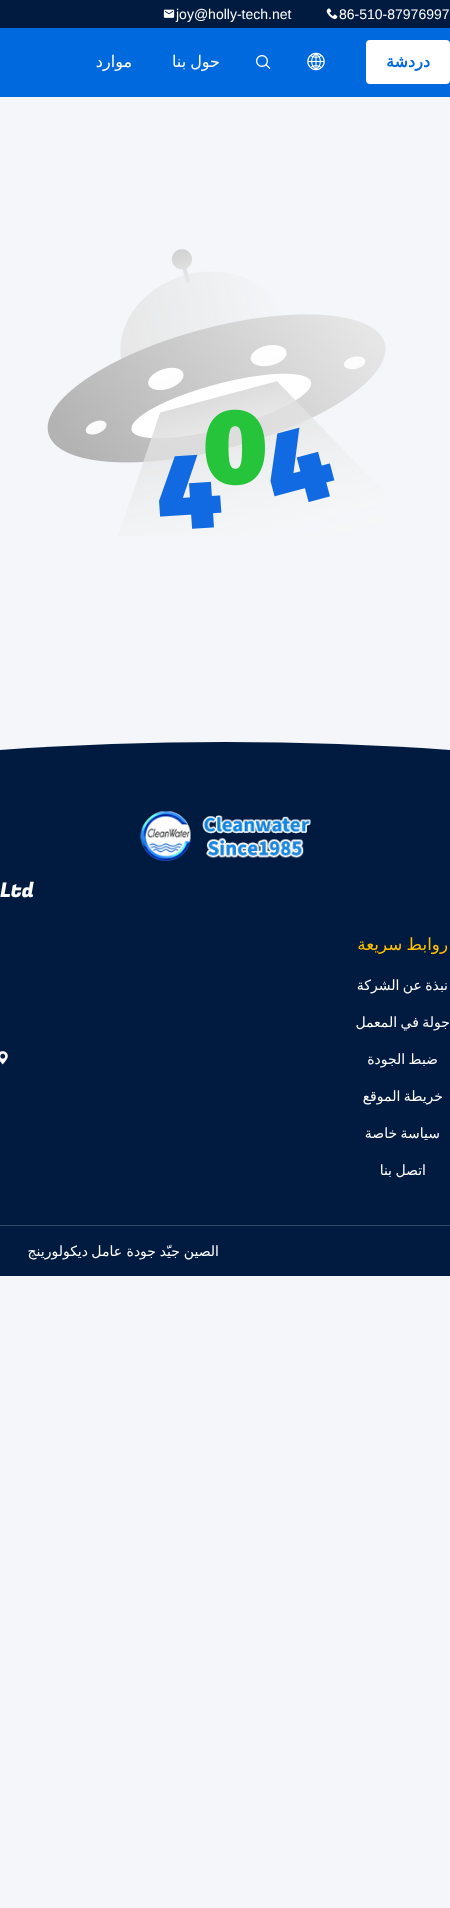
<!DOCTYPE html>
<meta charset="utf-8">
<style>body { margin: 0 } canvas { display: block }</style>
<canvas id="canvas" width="450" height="1908"></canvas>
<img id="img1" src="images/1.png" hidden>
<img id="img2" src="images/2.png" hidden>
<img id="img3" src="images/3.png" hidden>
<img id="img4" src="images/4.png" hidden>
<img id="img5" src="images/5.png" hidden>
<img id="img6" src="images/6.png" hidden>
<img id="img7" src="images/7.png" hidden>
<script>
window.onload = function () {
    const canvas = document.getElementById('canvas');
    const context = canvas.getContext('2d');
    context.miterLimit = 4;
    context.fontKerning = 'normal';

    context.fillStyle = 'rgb(244, 246, 249)';
    context.fillRect(0, 0, 450, 1908);
    context.fillStyle = 'rgb(0, 27, 63)';
    context.fillRect(0, 0, 450, 28);
    context.drawImage(document.getElementById('img1'), 326, 8, 12, 12);
    context.drawImage(document.getElementById('img2'), 163, 9, 12, 9);
    context.fillStyle = 'rgb(0, 105, 222)';
    context.fillRect(0, 28, 450, 69);
    context.fillStyle = 'rgb(255, 255, 255)';
    context.beginPath();
    context.roundRect(366, 40, 84, 44, 4);
    context.fill();
    context.drawImage(document.getElementById('img3'), 307, 52, 18, 19);
    context.drawImage(document.getElementById('img4'), 256, 55, 15, 14);
    context.drawImage(document.getElementById('img5'), 47, 249, 339, 287);
    context.save();
    context.beginPath();
    context.rect(0, 742, 450, 534);
    context.clip();
    context.fillStyle = 'rgb(0, 27, 63)';
    context.beginPath();
    context.moveTo(225, 742);
    context.bezierCurveTo(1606, 742, 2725, 1637, 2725, 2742);
    context.lineTo(-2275, 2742);
    context.bezierCurveTo(-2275, 1637, -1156, 742, 225, 742);
    context.closePath();
    context.fill();
    context.restore();
    context.drawImage(document.getElementById('img6'), 140, 811, 171, 50);
    context.drawImage(document.getElementById('img7'), 0, 1051, 8, 14);
    context.fillStyle = 'rgb(51, 73, 101)';
    context.fillRect(0, 1225, 450, 1);
    context.font = '14px Liberation Sans';
    context.fillStyle = 'rgb(255, 255, 255)';
    context.fillText('86-510-87976997', 339, 19);
    context.fillText('joy@holly-tech.net', 176, 19);
    context.direction = 'rtl';
    context.font = 'bold 16px DejaVu Sans';
    context.fillStyle = 'rgb(0, 105, 222)';
    context.fillText('دردشة', 430, 67);
    context.wordSpacing = '-1px';
    context.font = '16px DejaVu Sans';
    context.fillStyle = 'rgb(255, 255, 255)';
    context.fillText('حول بنا', 220, 67);
    context.wordSpacing = '0px';
    context.fillText('موارد', 132, 67);
    context.direction = 'ltr';
    context.font = '20px Fugaz One';
    context.fillText('Ltd', 0, 897);
    context.wordSpacing = '-1px';
    context.direction = 'rtl';
    context.font = '16.75px DejaVu Sans';
    context.fillStyle = 'rgb(255, 192, 0)';
    context.fillText('روابط سريعة', 448, 950);
    context.font = '14px DejaVu Sans';
    context.fillStyle = 'rgb(255, 255, 255)';
    context.fillText('نبذة عن الشركة', 448, 990);
    context.fillText('جولة في المعمل', 450, 1027);
    context.fillText('ضبط الجودة', 438, 1064);
    context.fillText('خريطة الموقع', 443, 1101);
    context.fillText('سياسة خاصة', 440, 1138);
    context.fillText('اتصل بنا', 426, 1175);
    context.wordSpacing = '0px';
    context.fillText('الصين', 219, 1256);
    context.fillText('جيّد', 180, 1256);
    context.fillText('جودة', 156, 1256);
    context.fillText('عامل', 122, 1256);
    context.fillText('ديكولورينج', 88, 1256);
};
</script>
